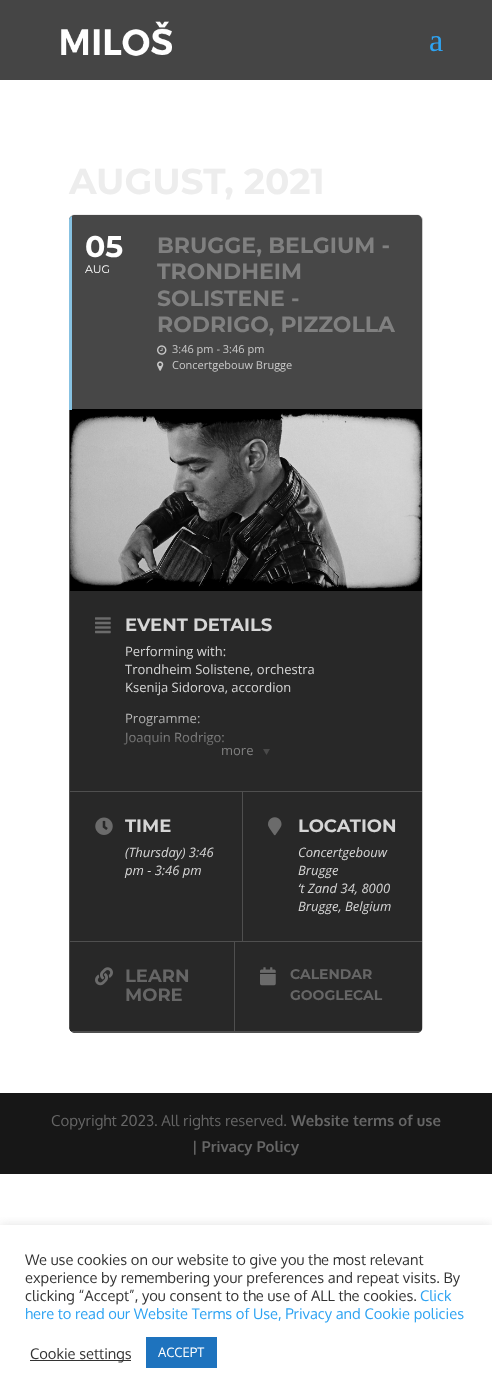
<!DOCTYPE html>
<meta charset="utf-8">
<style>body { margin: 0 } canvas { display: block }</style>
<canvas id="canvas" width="492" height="1398"></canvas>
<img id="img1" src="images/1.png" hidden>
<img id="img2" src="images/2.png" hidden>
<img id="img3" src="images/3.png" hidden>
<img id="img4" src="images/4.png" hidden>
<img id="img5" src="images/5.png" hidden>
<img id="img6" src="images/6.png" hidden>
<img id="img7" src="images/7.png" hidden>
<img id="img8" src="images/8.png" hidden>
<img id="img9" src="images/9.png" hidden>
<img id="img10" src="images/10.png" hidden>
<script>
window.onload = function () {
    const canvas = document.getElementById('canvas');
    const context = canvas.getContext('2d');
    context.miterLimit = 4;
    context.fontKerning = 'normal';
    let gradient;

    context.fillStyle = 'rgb(255, 255, 255)';
    context.fillRect(0, 0, 492, 1398);
    context.fillStyle = 'rgb(69, 69, 69)';
    context.fillRect(0, 0, 492, 80);
    context.drawImage(document.getElementById('img1'), 61, 21, 111, 35);
    context.fillStyle = 'rgb(239, 238, 238)';
    context.beginPath();
    context.moveTo(75, 214);
    context.lineTo(417, 214);
    context.bezierCurveTo(418, 214, 420, 215, 421, 216);
    context.bezierCurveTo(420, 216, 418, 215, 417, 215);
    context.lineTo(75, 215);
    context.bezierCurveTo(72, 215, 69, 217, 69, 220);
    context.bezierCurveTo(69, 217, 72, 214, 75, 214);
    context.closePath();
    context.fill();
    context.fillStyle = 'rgb(205, 205, 205)';
    context.beginPath();
    context.moveTo(421, 216);
    context.bezierCurveTo(422, 217, 422, 218, 422, 220);
    context.lineTo(422, 1027);
    context.bezierCurveTo(422, 1030, 420, 1033, 417, 1033);
    context.bezierCurveTo(420, 1033, 423, 1030, 423, 1027);
    context.lineTo(423, 220);
    context.bezierCurveTo(423, 218, 422, 217, 421, 216);
    context.closePath();
    context.fill();
    context.fillStyle = 'rgb(71, 71, 71)';
    context.beginPath();
    context.moveTo(75, 215);
    context.bezierCurveTo(72, 215, 69, 217, 69, 220);
    context.lineTo(69, 410);
    context.lineTo(422, 410);
    context.lineTo(422, 220);
    context.bezierCurveTo(422, 217, 420, 215, 417, 215);
    context.closePath();
    context.fill();
    context.fillStyle = 'rgb(135, 194, 226)';
    context.beginPath();
    context.moveTo(72, 216);
    context.bezierCurveTo(70, 217, 69, 218, 69, 220);
    context.lineTo(69, 410);
    context.lineTo(72, 410);
    context.closePath();
    context.fill();
    context.drawImage(document.getElementById('img2'), 157, 345, 10, 10);
    context.drawImage(document.getElementById('img3'), 157, 361, 7, 10);
    context.fillStyle = 'rgb(0, 0, 0)';
    context.fillRect(72, 409, 350, 1);
    context.fillStyle = 'rgb(40, 40, 40)';
    context.beginPath();
    context.moveTo(69, 410);
    context.lineTo(69, 1027);
    context.bezierCurveTo(69, 1030, 72, 1033, 75, 1033);
    context.lineTo(417, 1033);
    context.bezierCurveTo(420, 1033, 422, 1030, 422, 1027);
    context.lineTo(422, 410);
    context.closePath();
    context.fill();
    context.fillStyle = 'rgb(79, 79, 79)';
    context.beginPath();
    context.moveTo(75, 1033);
    context.lineTo(417, 1033);
    context.lineTo(420, 1032);
    context.lineTo(72, 1032);
    context.closePath();
    context.fill();
    context.beginPath();
    context.moveTo(69, 410);
    context.lineTo(69, 1027);
    context.lineTo(70, 1030);
    context.lineTo(70, 410);
    context.closePath();
    context.fill();
    context.drawImage(document.getElementById('img4'), 70, 410, 352, 181);
    context.fillRect(70, 791, 352, 1);
    context.drawImage(document.getElementById('img5'), 95, 617, 16, 17);
    context.drawImage(document.getElementById('img6'), 263, 749, 7, 6);
    context.fillRect(70, 941, 352, 1);
    context.fillRect(242, 792, 1, 149);
    context.drawImage(document.getElementById('img7'), 95, 817, 18, 18);
    context.drawImage(document.getElementById('img8'), 268, 817, 14, 19);
    context.beginPath();
    context.moveTo(72, 1032);
    context.lineTo(71, 1031);
    context.lineTo(421, 1031);
    context.lineTo(420, 1032);
    context.closePath();
    context.fill();
    context.fillStyle = 'rgb(40, 40, 40)';
    context.fillRect(70, 1030, 1, 1);
    context.fillStyle = 'rgb(79, 79, 79)';
    context.fillRect(234, 942, 1, 89);
    context.drawImage(document.getElementById('img9'), 95, 967, 18, 19);
    context.fillStyle = 'rgb(40, 40, 40)';
    context.beginPath();
    context.moveTo(235, 942);
    context.lineTo(235, 1031);
    context.lineTo(421, 1031);
    context.bezierCurveTo(422, 1030, 422, 1029, 422, 1027);
    context.lineTo(422, 942);
    context.closePath();
    context.fill();
    context.drawImage(document.getElementById('img10'), 260, 967, 16, 19);
    context.fillStyle = 'rgb(23, 23, 23)';
    context.fillRect(0, 1093, 492, 81);
    context.save();
    context.beginPath();
    context.rect(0, 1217, 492, 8);
    context.clip();
    context.fillStyle = 'rgba(172, 171, 171, 0.3)';
    context.filter = 'blur(5px)';
    context.beginPath();
    context.rect(0, 1224, 492, 173);
    context.fill();
    context.filter = 'none';
    context.restore();
    context.fillStyle = 'rgb(51, 51, 51)';
    context.fillRect(30, 1360, 101, 1);
    context.fillStyle = 'rgb(30, 115, 190)';
    context.fillRect(146, 1337, 71, 31);
    context.font = '32px Liberation Serif';
    context.fillStyle = 'rgb(46, 163, 242)';
    context.fillText('a', 429, 51);
    context.font = '100 36px Montserrat';
    context.fillStyle = 'rgb(237, 237, 237)';
    context.fillText('AUGUST, 2021', 69, 194);
    context.font = '100 30px Montserrat';
    context.fillStyle = 'rgb(255, 255, 255)';
    context.fillText('05', 85, 257);
    context.font = '100 11px "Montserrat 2"';
    context.fillText('AUG', 85, 273);
    context.font = '100 22px Montserrat';
    context.fillStyle = 'rgb(128, 128, 128)';
    context.fillText('BRUGGE, BELGIUM -', 157, 253);
    context.fillText('TRONDHEIM', 157, 279);
    context.fillText('SOLISTENE -', 157, 306);
    context.fillText('RODRIGO, PIZZOLLA', 157, 332);
    context.font = '11px Open Sans';
    context.fillStyle = 'rgb(200, 200, 200)';
    context.fillText('3:46 pm - 3:46 pm', 172, 353);
    context.fillText('Concertgebouw Brugge', 172, 369);
    context.font = '100 18px Montserrat';
    context.fillStyle = 'rgb(214, 214, 214)';
    context.fillText('EVENT DETAILS', 125, 631);
    context.font = '13px Open Sans';
    context.fillText('Performing with:', 125, 656);
    context.fillText('Trondheim Solistene, orchestra', 125, 674);
    context.fillText('Ksenija Sidorova, accordion', 125, 692);
    context.fillText('Programme:', 125, 723);
    context.fillText('Joaquin Rodrigo:', 125, 742);
    gradient = context.createLinearGradient(246, 706, 246, 766);
    gradient.addColorStop(0, 'rgba(40, 40, 40, 0)');
    gradient.addColorStop(0.01, 'rgba(40, 40, 40, 0.01)');
    gradient.addColorStop(1, 'rgb(40, 40, 40)');
    context.fillStyle = gradient;
    context.fillRect(124, 713, 100, 33);
    context.fillStyle = 'rgb(128, 128, 128)';
    context.fillText('more', 221, 755);
    context.font = '100 18px Montserrat';
    context.fillStyle = 'rgb(214, 214, 214)';
    context.fillText('TIME', 125, 832);
    context.font = 'italic 13px Open Sans';
    context.fillText('(Thursday) 3:46', 125, 857);
    context.fillText('pm - 3:46 pm', 125, 875);
    context.font = '100 18px Montserrat';
    context.fillText('LOCATION', 298, 832);
    context.font = 'italic 13px Open Sans';
    context.fillText('Concertgebouw', 298, 857);
    context.fillText('Brugge', 298, 875);
    context.fillText('‘t Zand 34, 8000', 298, 893);
    context.fillText('Brugge, Belgium', 298, 911);
    context.font = '100 18px Montserrat';
    context.fillStyle = 'rgb(102, 102, 102)';
    context.fillText('LEARN', 125, 982);
    context.fillText('MORE', 125, 1001);
    context.font = '100 14px Montserrat';
    context.fillText('CALENDAR', 290, 979);
    context.fillText('GOOGLECAL', 290, 1000);
    context.font = '15px Oxygen';
    context.fillText('Copyright 2023. All rights reserved.', 51, 1126);
    context.font = 'bold 15px Oxygen';
    context.fillText('Website terms of use', 291, 1126);
    context.fillText('| Privacy Policy', 192, 1152);
    context.font = '14.7px Oxygen';
    context.fillStyle = 'rgb(51, 51, 51)';
    context.fillText('We use cookies on our website to give you the most relevant', 25, 1265);
    context.fillText('experience by remembering your preferences and repeat visits. By', 25, 1283);
    context.fillText('clicking “Accept”, you consent to the use of ALL the cookies.', 25, 1301);
    context.fillStyle = 'rgb(46, 163, 242)';
    context.fillText('Click', 420, 1301);
    context.fillText('here to read our Website Terms of Use, Privacy and Cookie policies', 25, 1319);
    context.fillStyle = 'rgb(51, 51, 51)';
    context.fillText('Cookie settings', 30, 1359);
    context.font = '13px Oxygen';
    context.fillStyle = 'rgb(255, 255, 255)';
    context.fillText('ACCEPT', 158, 1357);
};
</script>
